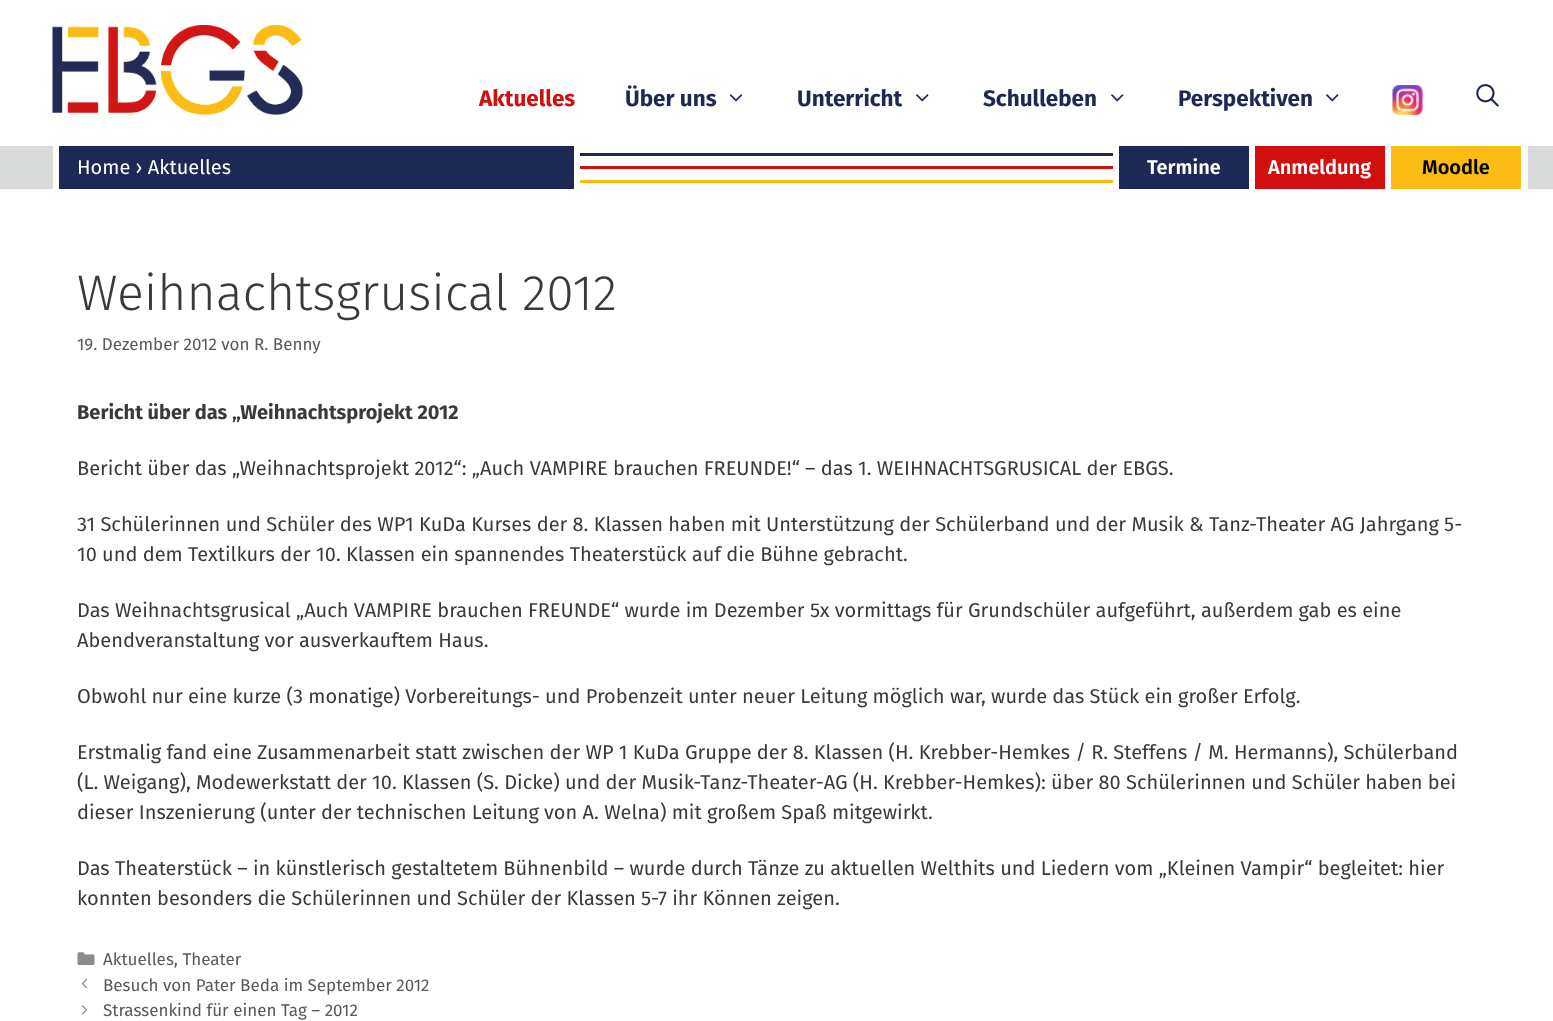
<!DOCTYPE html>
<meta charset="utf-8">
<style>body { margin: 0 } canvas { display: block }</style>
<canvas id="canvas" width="1553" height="1021"></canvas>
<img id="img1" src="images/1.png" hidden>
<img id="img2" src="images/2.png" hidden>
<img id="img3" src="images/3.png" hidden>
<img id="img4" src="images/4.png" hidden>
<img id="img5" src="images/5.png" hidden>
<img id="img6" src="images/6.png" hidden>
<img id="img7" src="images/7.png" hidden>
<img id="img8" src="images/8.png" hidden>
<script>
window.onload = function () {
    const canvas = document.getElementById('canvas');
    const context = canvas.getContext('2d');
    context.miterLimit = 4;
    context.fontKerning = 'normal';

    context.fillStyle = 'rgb(255, 255, 255)';
    context.fillRect(0, 0, 1553, 1021);
    context.drawImage(document.getElementById('img1'), 52, 25, 251, 90);
    context.drawImage(document.getElementById('img2'), 729, 94, 14, 8);
    context.drawImage(document.getElementById('img3'), 916, 94, 13, 8);
    context.drawImage(document.getElementById('img3'), 1111, 94, 13, 8);
    context.drawImage(document.getElementById('img3'), 1326, 94, 13, 8);
    context.drawImage(document.getElementById('img4'), 1392, 85, 31, 30);
    context.drawImage(document.getElementById('img5'), 1476, 84, 23, 23);
    context.fillStyle = 'rgb(217, 218, 218)';
    context.fillRect(0, 146, 1553, 43);
    context.fillStyle = 'rgb(255, 255, 255)';
    context.fillRect(574, 146, 545, 43);
    context.fillStyle = 'rgb(30, 40, 84)';
    context.fillRect(59, 146, 515, 43);
    context.fillStyle = 'rgb(255, 255, 255)';
    context.fillRect(53, 146, 6, 43);
    context.fillStyle = 'rgb(30, 40, 84)';
    context.fillRect(580, 153, 533, 3);
    context.fillStyle = 'rgb(209, 15, 15)';
    context.fillRect(580, 166, 533, 3);
    context.fillStyle = 'rgb(251, 188, 21)';
    context.fillRect(580, 180, 533, 3);
    context.fillStyle = 'rgb(30, 40, 84)';
    context.fillRect(1119, 146, 130, 43);
    context.fillStyle = 'rgb(255, 255, 255)';
    context.fillRect(1249, 146, 6, 43);
    context.fillStyle = 'rgb(209, 15, 15)';
    context.fillRect(1255, 146, 130, 43);
    context.fillStyle = 'rgb(255, 255, 255)';
    context.fillRect(1385, 146, 6, 43);
    context.fillStyle = 'rgb(251, 188, 21)';
    context.fillRect(1391, 146, 130, 43);
    context.fillStyle = 'rgb(255, 255, 255)';
    context.fillRect(1521, 146, 7, 43);
    context.drawImage(document.getElementById('img6'), 77, 952, 18, 13);
    context.drawImage(document.getElementById('img7'), 81, 979, 7, 10);
    context.drawImage(document.getElementById('img8'), 81, 1005, 7, 10);
    context.font = 'bold 22.5px Fira Sans';
    context.fillStyle = 'rgb(209, 15, 15)';
    context.fillText('Aktuelles', 479, 106);
    context.fillStyle = 'rgb(30, 40, 84)';
    context.fillText('Über uns', 625, 106);
    context.fillText('Unterricht', 797, 106);
    context.fillText('Schulleben', 983, 106);
    context.fillText('Perspektiven', 1178, 106);
    context.font = '20px Fira Sans';
    context.fillStyle = 'rgb(255, 255, 255)';
    context.fillText('Home › Aktuelles', 77, 174);
    context.font = '600 20px Fira Sans';
    context.fillText('Termine', 1147, 174);
    context.fillText('Anmeldung', 1268, 174);
    context.fillStyle = 'rgb(0, 0, 0)';
    context.fillText('Moodle', 1422, 174);
    context.font = '300 50px Fira Sans';
    context.fillStyle = 'rgb(58, 58, 58)';
    context.fillText('Weihnachtsgrusical 2012', 77, 310);
    context.font = '17px Fira Sans';
    context.fillStyle = 'rgb(89, 89, 89)';
    context.fillText('19. Dezember 2012 von R. Benny', 77, 350);
    context.font = 'bold 20px Fira Sans';
    context.fillStyle = 'rgb(58, 58, 58)';
    context.fillText('Bericht über das „Weihnachtsprojekt 2012', 77, 419);
    context.font = '20px Fira Sans';
    context.fillText('Bericht über das „Weihnachtsprojekt 2012“: „Auch VAMPIRE brauchen FREUNDE!“ – das 1. WEIHNACHTSGRUSICAL der EBGS.', 77, 475);
    context.fillText('31 Schülerinnen und Schüler des WP1 KuDa Kurses der 8. Klassen haben mit Unterstützung der Schülerband und der Musik & Tanz-Theater AG Jahrgang 5-', 77, 531);
    context.fillText('10 und dem Textilkurs der 10. Klassen ein spannendes Theaterstück auf die Bühne gebracht.', 77, 561);
    context.fillText('Das Weihnachtsgrusical „Auch VAMPIRE brauchen FREUNDE“ wurde im Dezember 5x vormittags für Grundschüler aufgeführt, außerdem gab es eine', 77, 617);
    context.fillText('Abendveranstaltung vor ausverkauftem Haus.', 77, 647);
    context.fillText('Obwohl nur eine kurze (3 monatige) Vorbereitungs- und Probenzeit unter neuer Leitung möglich war, wurde das Stück ein großer Erfolg.', 77, 703);
    context.fillText('Erstmalig fand eine Zusammenarbeit statt zwischen der WP 1 KuDa Gruppe der 8. Klassen (H. Krebber-Hemkes / R. Steffens / M. Hermanns), Schülerband', 77, 759);
    context.fillText('(L. Weigang), Modewerkstatt der 10. Klassen (S. Dicke) und der Musik-Tanz-Theater-AG (H. Krebber-Hemkes): über 80 Schülerinnen und Schüler haben bei', 77, 789);
    context.fillText('dieser Inszenierung (unter der technischen Leitung von A. Welna) mit großem Spaß mitgewirkt.', 77, 819);
    context.fillText('Das Theaterstück – in künstlerisch gestaltetem Bühnenbild – wurde durch Tänze zu aktuellen Welthits und Liedern vom „Kleinen Vampir“ begleitet: hier', 77, 875);
    context.fillText('konnten besonders die Schülerinnen und Schüler der Klassen 5-7 ihr Können zeigen.', 77, 905);
    context.font = '17px Fira Sans';
    context.fillStyle = 'rgb(89, 89, 89)';
    context.fillText('Aktuelles, Theater', 103, 965);
    context.fillText('Besuch von Pater Beda im September 2012', 103, 991);
    context.fillText('Strassenkind für einen Tag – 2012', 103, 1016);
};
</script>
